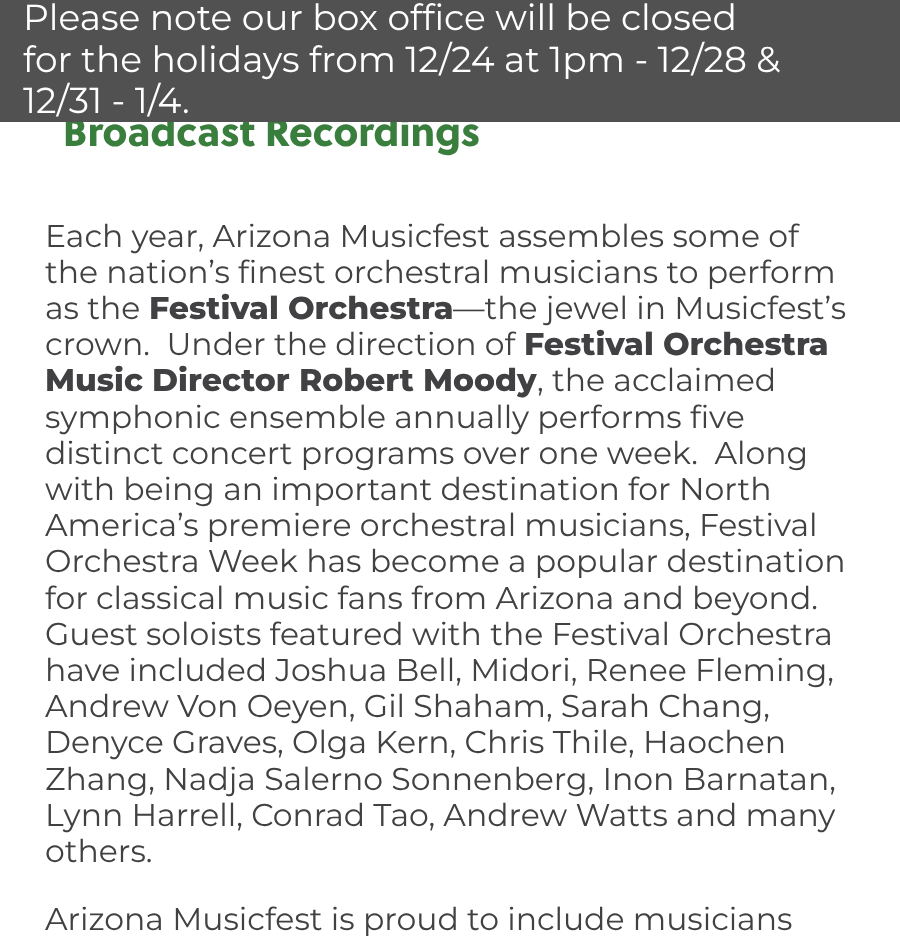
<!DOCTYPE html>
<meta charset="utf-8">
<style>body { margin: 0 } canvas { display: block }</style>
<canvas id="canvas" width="900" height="945"></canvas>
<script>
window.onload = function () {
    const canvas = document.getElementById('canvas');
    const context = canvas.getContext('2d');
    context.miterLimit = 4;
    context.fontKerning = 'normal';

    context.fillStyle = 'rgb(255, 255, 255)';
    context.fillRect(0, 0, 900, 945);
    context.font = '800 39.6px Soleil';
    context.fillStyle = 'rgb(58, 126, 61)';
    context.fillText('Broadcast Recordings', 63, 146);
    context.fillStyle = 'rgb(81, 81, 81)';
    context.fillRect(0, 0, 900, 122);
    context.font = '36px Montserrat';
    context.fillStyle = 'rgb(255, 255, 255)';
    context.fillText('12/31 - 1/4.', 23, 113);
    context.fillText('for the holidays from 12/24 at 1pm - 12/28 &', 23, 72);
    context.fillText('Please note our box office will be closed', 23, 30);
    context.font = '31.5px Montserrat';
    context.fillStyle = 'rgb(65, 64, 66)';
    context.fillText('Each year, Arizona Musicfest assembles some of', 45, 247);
    context.fillText('the nation’s finest orchestral musicians to perform', 45, 283);
    context.fillText('as the', 45, 319);
    context.font = '800 31.5px Montserrat';
    context.fillText('Festival Orchestra', 149, 319);
    context.font = '31.5px Montserrat';
    context.fillText('—the jewel in Musicfest’s', 453, 319);
    context.fillText('crown.  Under the direction of', 45, 355);
    context.font = '800 31.5px Montserrat';
    context.fillText('Festival Orchestra', 524, 355);
    context.fillText('Music Director Robert Moody', 45, 391);
    context.font = '31.5px Montserrat';
    context.fillText(', the acclaimed', 537, 391);
    context.fillText('symphonic ensemble annually performs five', 45, 428);
    context.fillText('distinct concert programs over one week.  Along', 45, 464);
    context.fillText('with being an important destination for North', 45, 500);
    context.fillText('America’s premiere orchestral musicians, Festival', 45, 536);
    context.fillText('Orchestra Week has become a popular destination', 45, 572);
    context.fillText('for classical music fans from Arizona and beyond.', 45, 609);
    context.fillText('Guest soloists featured with the Festival Orchestra', 45, 645);
    context.fillText('have included Joshua Bell, Midori, Renee Fleming,', 45, 681);
    context.fillText('Andrew Von Oeyen, Gil Shaham, Sarah Chang,', 45, 717);
    context.fillText('Denyce Graves, Olga Kern, Chris Thile, Haochen', 45, 753);
    context.fillText('Zhang, Nadja Salerno Sonnenberg, Inon Barnatan,', 45, 790);
    context.fillText('Lynn Harrell, Conrad Tao, Andrew Watts and many', 45, 826);
    context.fillText('others.', 45, 862);
    context.fillText('Arizona Musicfest is proud to include musicians', 45, 930);
};
</script>
